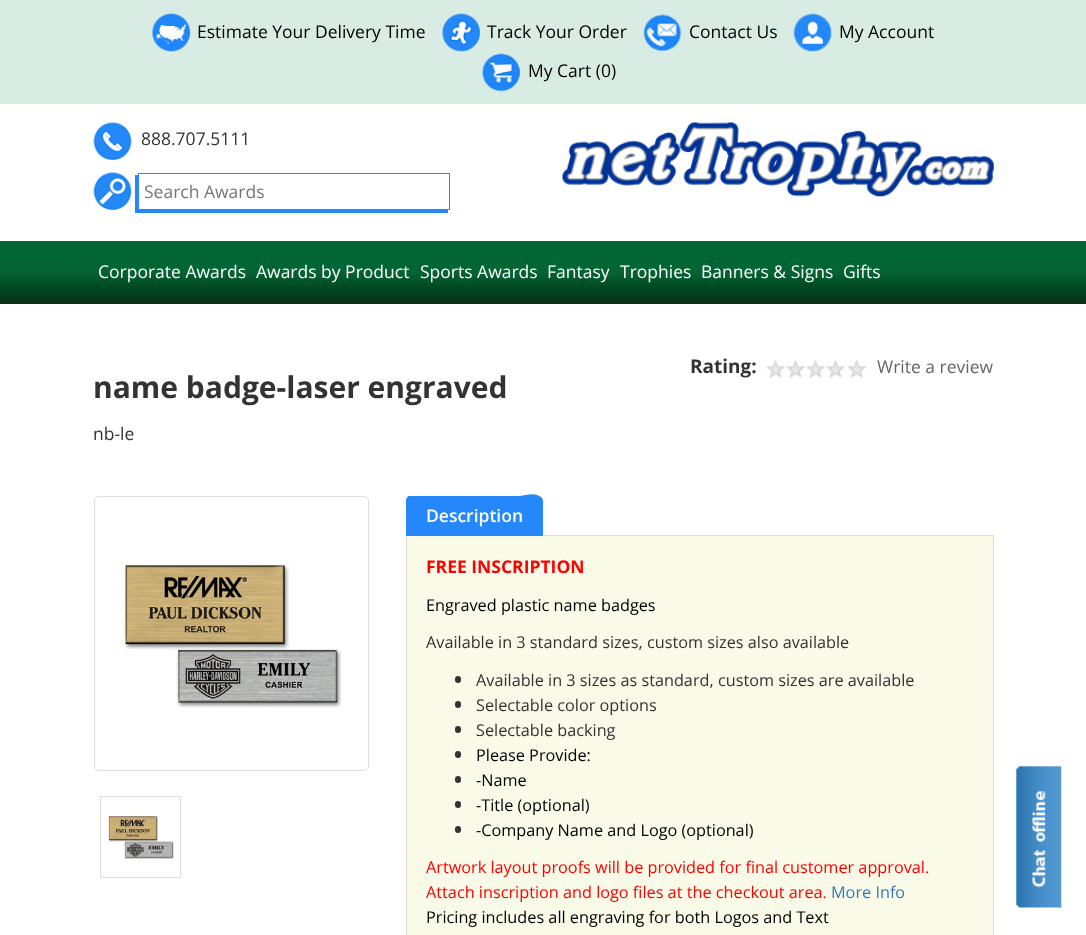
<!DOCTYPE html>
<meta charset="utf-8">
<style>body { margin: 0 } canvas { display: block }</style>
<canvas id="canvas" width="1086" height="935"></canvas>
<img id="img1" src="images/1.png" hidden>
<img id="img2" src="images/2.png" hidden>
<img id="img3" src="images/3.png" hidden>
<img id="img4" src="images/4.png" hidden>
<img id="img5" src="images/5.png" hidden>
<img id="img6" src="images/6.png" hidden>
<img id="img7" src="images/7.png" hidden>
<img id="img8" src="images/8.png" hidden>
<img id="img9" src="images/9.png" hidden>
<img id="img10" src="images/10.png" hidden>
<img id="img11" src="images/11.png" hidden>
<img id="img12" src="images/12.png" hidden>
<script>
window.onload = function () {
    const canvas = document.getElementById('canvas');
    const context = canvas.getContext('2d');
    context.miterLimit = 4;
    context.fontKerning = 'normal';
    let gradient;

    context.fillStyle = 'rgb(255, 255, 255)';
    context.fillRect(0, 0, 1086, 935);
    context.fillStyle = 'rgb(216, 236, 227)';
    context.fillRect(0, 0, 1086, 104);
    context.drawImage(document.getElementById('img1'), 152, 13, 38, 39);
    context.drawImage(document.getElementById('img2'), 442, 13, 38, 39);
    context.drawImage(document.getElementById('img3'), 643, 14, 39, 38);
    context.drawImage(document.getElementById('img4'), 793, 13, 39, 39);
    context.drawImage(document.getElementById('img5'), 482, 53, 38, 39);
    context.drawImage(document.getElementById('img6'), 93, 122, 39, 38);
    context.drawImage(document.getElementById('img7'), 93, 172, 39, 38);
    context.fillStyle = 'rgb(36, 136, 249)';
    context.beginPath();
    context.moveTo(135, 175);
    context.lineTo(135, 213);
    context.lineTo(448, 213);
    context.lineTo(448, 210);
    context.lineTo(138, 210);
    context.lineTo(138, 175);
    context.closePath();
    context.fill();
    context.strokeStyle = 'rgb(36, 136, 249)';
    context.strokeRect(138.5, 173.5, 311, 36);
    context.drawImage(document.getElementById('img8'), 562, 122, 432, 75);
    context.drawImage(document.getElementById('img9'), 1016, 766, 46, 142);
    gradient = context.createLinearGradient(543, 241, 543, 304);
    gradient.addColorStop(0, 'rgb(3, 101, 52)');
    gradient.addColorStop(0.39, 'rgb(2, 102, 52)');
    gradient.addColorStop(0.5, 'rgb(7, 99, 52)');
    gradient.addColorStop(0.65, 'rgb(0, 83, 39)');
    gradient.addColorStop(0.67, 'rgb(0, 81, 40)');
    gradient.addColorStop(0.7, 'rgb(0, 76, 37)');
    gradient.addColorStop(0.78, 'rgb(0, 70, 36)');
    gradient.addColorStop(0.85, 'rgb(5, 64, 34)');
    gradient.addColorStop(0.87, 'rgb(2, 58, 29)');
    gradient.addColorStop(0.93, 'rgb(8, 52, 27)');
    gradient.addColorStop(1, 'rgb(8, 48, 24)');
    context.fillStyle = gradient;
    context.fillRect(0, 241, 1086, 63);
    context.drawImage(document.getElementById('img10'), 766, 359, 101, 19);
    context.beginPath();
    context.roundRect(94.5, 496.5, 274, 274, 4.5);
    context.strokeStyle = 'rgb(221, 221, 221)';
    context.stroke();
    context.drawImage(document.getElementById('img11'), 121, 562, 221, 146);
    context.strokeRect(100.5, 796.5, 80, 81);
    context.drawImage(document.getElementById('img12'), 107, 816, 67, 44);
    context.fillStyle = 'rgb(221, 221, 221)';
    context.fillRect(543, 535, 451, 1);
    context.fillStyle = 'rgb(36, 135, 250)';
    context.beginPath();
    context.roundRect(406, 496, 137, 40, [5, 5, 0, 0]);
    context.fill();
    context.beginPath();
    context.moveTo(411, 498);
    context.lineTo(409, 499);
    context.lineTo(407, 497);
    context.lineTo(409, 496);
    context.lineTo(518, 496);
    context.bezierCurveTo(526, 496, 536, 491, 541, 498);
    context.lineTo(540, 499);
    context.lineTo(538, 498);
    context.closePath();
    context.fill();
    context.beginPath();
    context.moveTo(541, 497.5);
    context.bezierCurveTo(541.5, 498.5, 542, 499.5, 542, 501);
    context.lineTo(542, 536);
    context.lineTo(541, 535);
    context.lineTo(541, 501);
    context.bezierCurveTo(541, 500, 540.5, 499, 540, 498.5);
    context.closePath();
    context.fill();
    context.beginPath();
    context.moveTo(406, 499.5);
    context.lineTo(407.5, 497.5);
    context.lineTo(409, 499);
    context.bezierCurveTo(408, 499, 408, 500, 408, 501);
    context.lineTo(408, 534.5);
    context.lineTo(406, 536);
    context.closePath();
    context.fill();
    context.fillStyle = 'rgb(250, 250, 232)';
    context.fillRect(407, 536, 586, 399);
    context.fillStyle = 'rgb(221, 221, 221)';
    context.fillRect(993, 536, 1, 399);
    context.fillRect(406, 536, 1, 399);
    context.fillStyle = 'rgb(51, 51, 51)';
    context.beginPath();
    context.roundRect(455, 676, 6, 7, 3);
    context.fill();
    context.beginPath();
    context.roundRect(455, 701, 6, 7, 3);
    context.fill();
    context.beginPath();
    context.roundRect(455, 726, 6, 7, 3);
    context.fill();
    context.beginPath();
    context.roundRect(455, 751, 6, 7, 3);
    context.fill();
    context.beginPath();
    context.roundRect(455, 776, 6, 7, 3);
    context.fill();
    context.beginPath();
    context.roundRect(455, 801, 6, 7, 3);
    context.fill();
    context.beginPath();
    context.roundRect(455, 826, 6, 7, 3);
    context.fill();
    context.font = '17.5px Open Sans';
    context.fillStyle = 'rgb(0, 0, 0)';
    context.fillText('Estimate Your Delivery Time', 197, 38);
    context.fillText('Track Your Order', 487, 38);
    context.fillText('Contact Us', 689, 38);
    context.fillText('My Account', 839, 38);
    context.fillText('My Cart (0)', 528, 77);
    context.fillStyle = 'rgb(51, 51, 51)';
    context.fillText('888.707.5111', 141, 145);
    context.fillStyle = 'rgb(117, 117, 117)';
    context.fillText('Search Awards', 144, 198);
    context.fillStyle = 'rgb(255, 255, 255)';
    context.fillText('Corporate Awards', 98, 278);
    context.fillText('Awards by Product', 256, 278);
    context.fillText('Sports Awards', 420, 278);
    context.fillText('Fantasy', 547, 278);
    context.fillText('Trophies', 620, 278);
    context.fillText('Banners & Signs', 701, 278);
    context.fillText('Gifts', 843, 278);
    context.font = 'bold 19px Open Sans';
    context.fillStyle = 'rgb(51, 51, 51)';
    context.fillText('Rating:', 690, 373);
    context.font = '17.5px Open Sans';
    context.fillStyle = 'rgb(102, 102, 102)';
    context.fillText('Write a review', 877, 373);
    context.font = 'bold 30px Open Sans';
    context.fillStyle = 'rgb(51, 51, 51)';
    context.fillText('name badge-laser engraved', 93, 398);
    context.font = '17.5px Open Sans';
    context.fillText('nb-le', 93, 440);
    context.font = '600 17.5px Open Sans';
    context.fillStyle = 'rgb(255, 255, 255)';
    context.fillText('Description', 426, 522);
    context.font = 'bold 17.5px Open Sans';
    context.fillStyle = 'rgb(255, 0, 0)';
    context.fillText('FREE INSCRIPTION', 426, 573);
    context.font = '16.25px Open Sans';
    context.fillStyle = 'rgb(0, 0, 0)';
    context.fillText('Engraved plastic name badges', 426, 611);
    context.fillStyle = 'rgb(51, 51, 51)';
    context.fillText('Available in 3 standard sizes, custom sizes also available', 426, 648);
    context.fillText('Available in 3 sizes as standard, custom sizes are available', 476, 686);
    context.fillText('Selectable color options', 476, 711);
    context.fillText('Selectable backing', 476, 736);
    context.fillStyle = 'rgb(0, 0, 0)';
    context.fillText('Please Provide:', 476, 761);
    context.fillText('-Name', 476, 786);
    context.fillText('-Title (optional)', 476, 811);
    context.fillText('-Company Name and Logo (optional)', 476, 836);
    context.fillStyle = 'rgb(255, 0, 0)';
    context.fillText('Artwork layout proofs will be provided for final customer approval.', 426, 873);
    context.fillText('Attach inscription and logo files at the checkout area.', 426, 898);
    context.fillStyle = 'rgb(51, 122, 183)';
    context.fillText('More Info', 831, 898);
    context.fillStyle = 'rgb(0, 0, 0)';
    context.fillText('Pricing includes all engraving for both Logos and Text', 426, 923);
};
</script>
